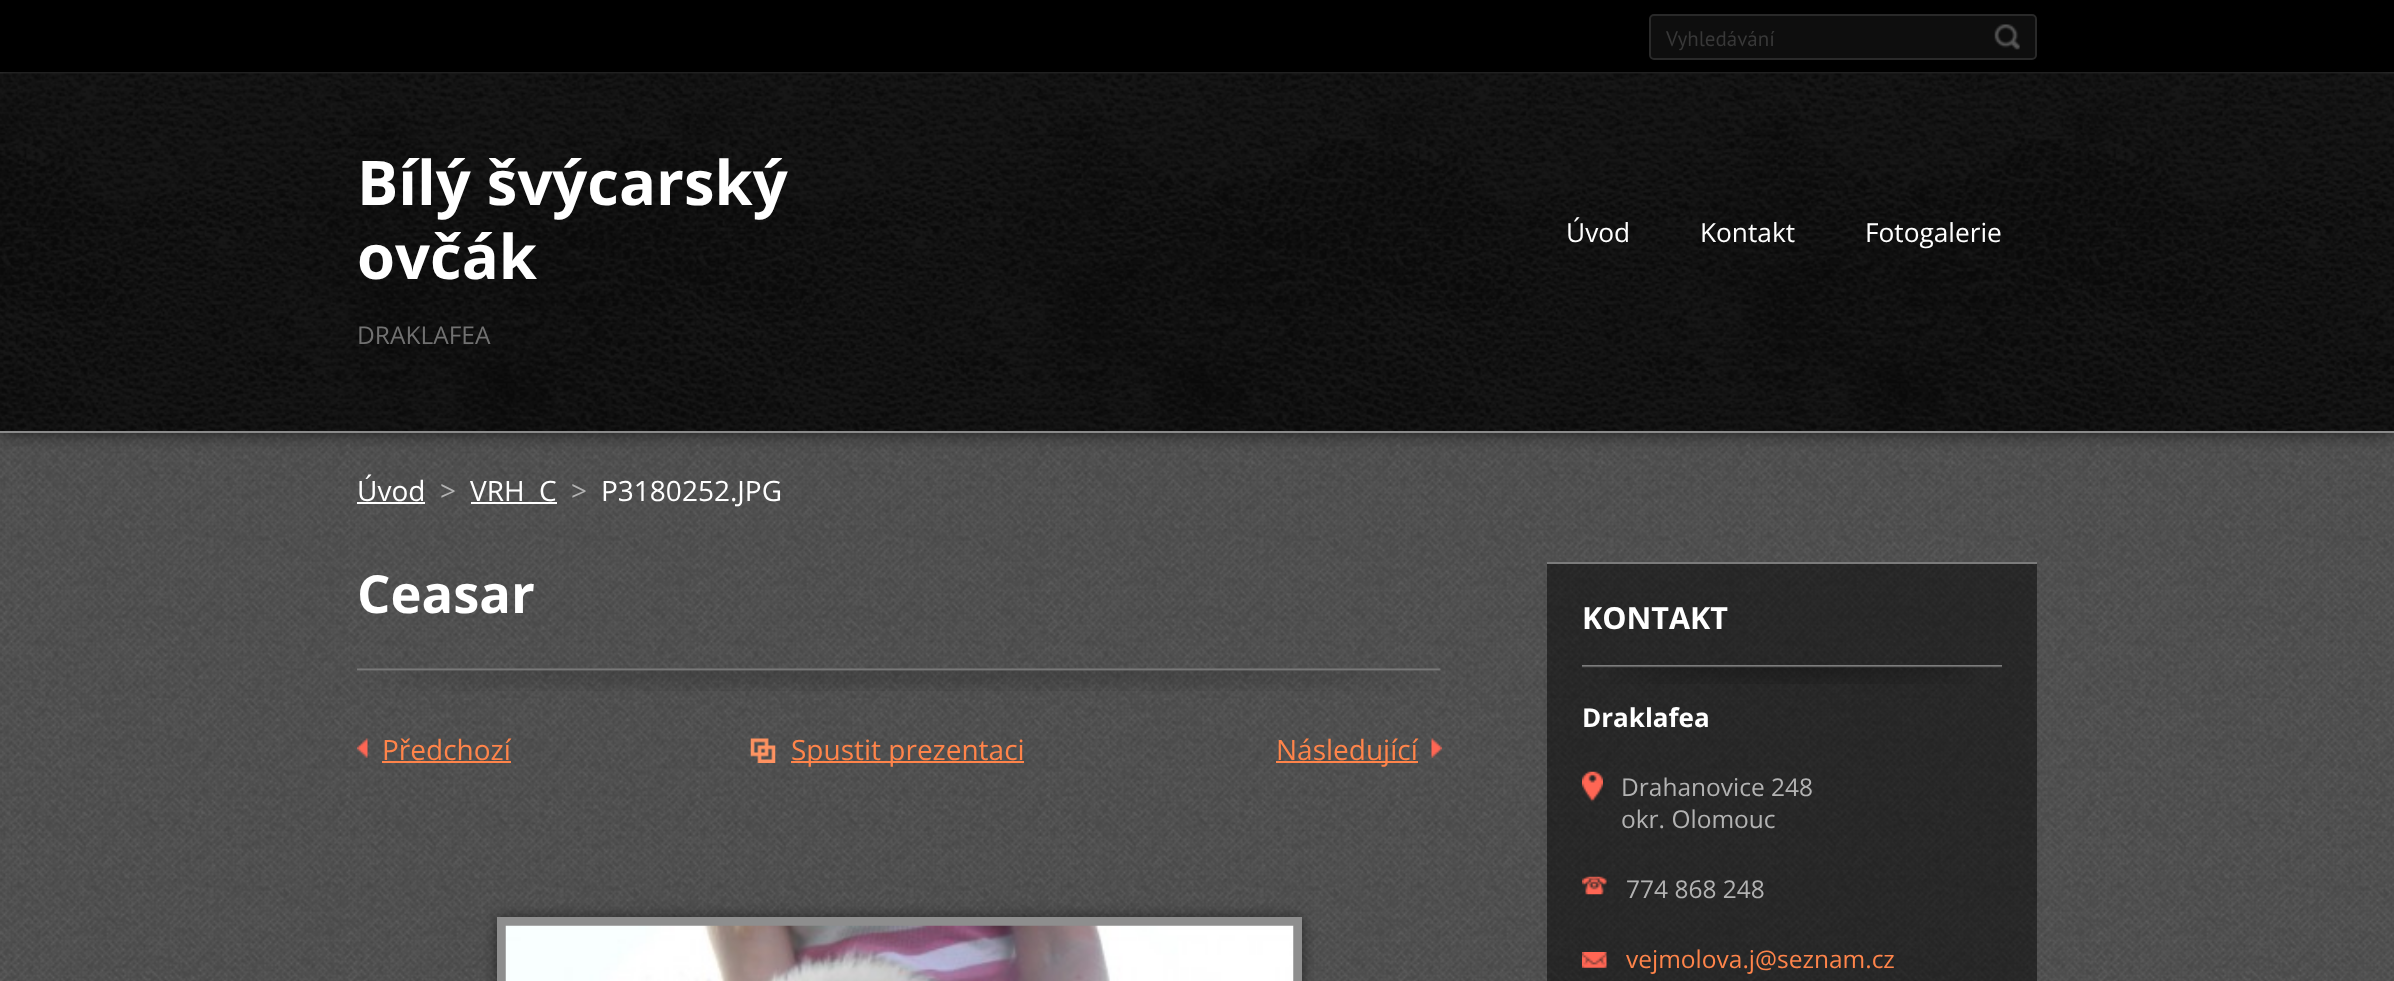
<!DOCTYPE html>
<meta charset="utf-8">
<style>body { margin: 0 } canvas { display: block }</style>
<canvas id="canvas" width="2394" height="981"></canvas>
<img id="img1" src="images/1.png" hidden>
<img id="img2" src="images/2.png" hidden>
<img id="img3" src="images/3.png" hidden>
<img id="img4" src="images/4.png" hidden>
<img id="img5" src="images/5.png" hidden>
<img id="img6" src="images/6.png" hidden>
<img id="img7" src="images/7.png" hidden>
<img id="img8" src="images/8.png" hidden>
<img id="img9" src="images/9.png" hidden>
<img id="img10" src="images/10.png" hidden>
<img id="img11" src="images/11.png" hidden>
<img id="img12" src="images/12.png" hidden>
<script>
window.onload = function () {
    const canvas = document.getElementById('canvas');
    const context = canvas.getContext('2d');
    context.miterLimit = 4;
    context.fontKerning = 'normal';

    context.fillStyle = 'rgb(255, 255, 255)';
    context.fillRect(0, 0, 2394, 981);
    context.drawImage(document.getElementById('img1'), 0, 433, 2394, 548);
    context.fillStyle = 'rgb(0, 0, 0)';
    context.fillRect(0, 0, 2394, 72);
    context.fillStyle = 'rgb(48, 48, 48)';
    context.fillRect(0, 72, 2394, 2);
    context.fillStyle = 'rgba(0, 0, 0, 0.7)';
    context.filter = 'blur(9px)';
    context.beginPath();
    context.rect(0, 74, 2394, 358);
    context.fill();
    context.filter = 'none';
    context.fillStyle = 'rgb(14, 14, 14)';
    context.beginPath();
    context.roundRect(1650, 15, 386, 44, 4);
    context.fill();
    context.strokeStyle = 'rgb(41, 41, 41)';
    context.lineWidth = 2;
    context.stroke();
    context.drawImage(document.getElementById('img2'), 1994, 24, 26, 26);
    context.drawImage(document.getElementById('img3'), 0, 73, 2394, 358);
    context.fillStyle = 'rgb(138, 138, 138)';
    context.fillRect(0, 431, 2394, 2);
    context.fillStyle = 'rgb(255, 255, 255)';
    context.fillRect(357, 502, 68, 2);
    context.fillRect(471, 502, 86, 2);
    context.drawImage(document.getElementById('img4'), 357, 668, 1084, 23);
    context.drawImage(document.getElementById('img5'), 357, 738, 11, 20);
    context.fillStyle = 'rgb(255, 132, 74)';
    context.fillRect(382, 761, 129, 2);
    context.drawImage(document.getElementById('img6'), 750, 738, 26, 25);
    context.fillRect(791, 761, 233, 2);
    context.drawImage(document.getElementById('img7'), 1431, 738, 11, 20);
    context.fillRect(1276, 761, 142, 2);
    context.fillStyle = 'rgba(0, 0, 0, 0.5)';
    context.filter = 'blur(7px)';
    context.beginPath();
    context.rect(497, 917, 805, 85);
    context.fill();
    context.filter = 'none';
    context.strokeStyle = 'rgb(142, 142, 142)';
    context.lineWidth = 9;
    context.strokeRect(501.5, 921.5, 796, 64);
    context.drawImage(document.getElementById('img8'), 505, 925, 789, 56);
    context.fillRect(1547, 564, 490, 417);
    context.fillStyle = 'rgb(124, 124, 124)';
    context.fillRect(1547, 562, 490, 2);
    context.drawImage(document.getElementById('img9'), 1582, 665, 420, 19);
    context.drawImage(document.getElementById('img10'), 1582, 771, 21, 31);
    context.drawImage(document.getElementById('img11'), 1582, 876, 25, 19);
    context.drawImage(document.getElementById('img12'), 1582, 952, 25, 16);
    context.font = '21px PT Sans';
    context.fillStyle = 'rgb(56, 56, 56)';
    context.fillText('Vyhledávání', 1666, 46);
    context.font = 'bold 61.5px Open Sans';
    context.fillStyle = 'rgb(255, 255, 255)';
    context.fillText('Bílý švýcarský', 357, 205);
    context.fillText('ovčák', 357, 279);
    context.font = '24.5px Open Sans';
    context.fillStyle = 'rgb(113, 113, 113)';
    context.fillText('DRAKLAFEA', 357, 344);
    context.font = '26.25px Open Sans';
    context.fillStyle = 'rgb(255, 255, 255)';
    context.fillText('Úvod', 1566, 242);
    context.fillText('Kontakt', 1700, 242);
    context.fillText('Fotogalerie', 1865, 242);
    context.font = '28px Open Sans';
    context.fillText('Úvod', 357, 501);
    context.fillStyle = 'rgb(179, 179, 179)';
    context.fillText('>', 440, 501);
    context.wordSpacing = '7px';
    context.fillStyle = 'rgb(255, 255, 255)';
    context.fillText('VRH C', 470, 501);
    context.wordSpacing = '0px';
    context.fillStyle = 'rgb(179, 179, 179)';
    context.fillText('>', 571, 501);
    context.fillStyle = 'rgb(255, 255, 255)';
    context.fillText('P3180252.JPG', 601, 501);
    context.font = 'bold 52.5px Open Sans';
    context.fillText('Ceasar', 357, 613);
    context.font = '28px Open Sans';
    context.fillStyle = 'rgb(255, 132, 74)';
    context.fillText('Předchozí', 382, 760);
    context.fillText('Spustit prezentaci', 791, 760);
    context.fillText('Následující', 1276, 760);
    context.font = 'bold 30.5px Open Sans';
    context.fillStyle = 'rgb(255, 255, 255)';
    context.fillText('KONTAKT', 1582, 629);
    context.font = 'bold 26px Open Sans';
    context.fillText('Draklafea', 1582, 727);
    context.font = '24.5px Open Sans';
    context.fillStyle = 'rgb(179, 179, 179)';
    context.fillText('Drahanovice 248', 1621, 796);
    context.fillText('okr. Olomouc', 1621, 828);
    context.fillText('774 868 248', 1626, 898);
    context.fillStyle = 'rgb(255, 132, 74)';
    context.fillText('vejmolova.j@seznam.cz', 1626, 968);
};
</script>
